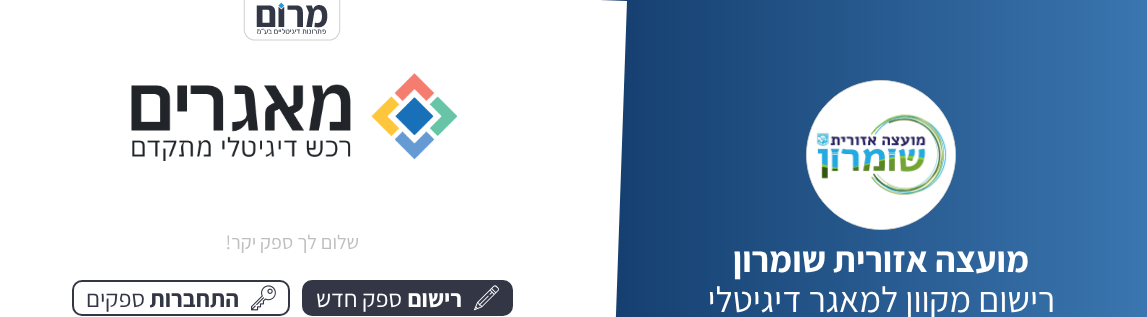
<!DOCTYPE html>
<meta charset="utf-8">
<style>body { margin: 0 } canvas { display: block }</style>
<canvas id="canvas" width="1147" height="317"></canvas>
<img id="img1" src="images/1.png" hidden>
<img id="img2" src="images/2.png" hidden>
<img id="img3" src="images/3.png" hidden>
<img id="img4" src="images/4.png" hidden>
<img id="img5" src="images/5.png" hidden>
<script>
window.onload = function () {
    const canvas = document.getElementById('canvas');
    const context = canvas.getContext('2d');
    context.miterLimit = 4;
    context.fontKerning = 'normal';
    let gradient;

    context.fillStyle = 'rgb(255, 255, 255)';
    context.fillRect(0, 0, 1147, 317);
    gradient = context.createLinearGradient(585, 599, 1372, 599);
    gradient.addColorStop(0, 'rgb(19, 60, 108)');
    gradient.addColorStop(1, 'rgb(74, 141, 203)');
    context.fillStyle = gradient;
    context.fillRect(601, 0, 546, 317);
    context.fillStyle = 'rgb(255, 255, 255)';
    context.beginPath();
    context.arc(881, 155, 74.5, 0, 2 * Math.PI);
    context.fill();
    context.strokeStyle = 'rgb(209, 209, 209)';
    context.stroke();
    context.drawImage(document.getElementById('img1'), 807, 81, 148, 148);
    context.beginPath();
    context.moveTo(42, -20);
    context.lineTo(627, 1);
    context.lineTo(585, 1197);
    context.lineTo(0, 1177);
    context.closePath();
    context.fill();
    context.drawImage(document.getElementById('img2'), 243, 0, 98, 41);
    context.drawImage(document.getElementById('img3'), 131, 73, 326, 88);
    context.fillStyle = 'rgb(51, 54, 69)';
    context.beginPath();
    context.roundRect(303, 281, 209, 34, 9);
    context.fill();
    context.strokeStyle = 'rgb(51, 54, 69)';
    context.lineWidth = 2;
    context.stroke();
    context.drawImage(document.getElementById('img4'), 474, 285, 25, 26);
    context.beginPath();
    context.roundRect(73, 281, 216, 34, 9);
    context.stroke();
    context.drawImage(document.getElementById('img5'), 251, 285, 25, 26);
    context.direction = 'rtl';
    context.font = 'bold 36px Assistant';
    context.fillStyle = 'rgb(255, 255, 255)';
    context.fillText('מועצה אזורית שומרון', 1029, 272);
    context.font = '36px Assistant';
    context.fillText('רישום מקוון למאגר דיגיטלי', 1055, 312);
    context.font = '20px Assistant';
    context.fillStyle = 'rgb(191, 191, 191)';
    context.fillText('שלום לך ספק יקר!', 359, 249);
    context.font = 'bold 24px Assistant';
    context.fillStyle = 'rgb(255, 255, 255)';
    context.fillText('רישום', 462, 307);
    context.font = '24px Assistant';
    context.fillText('ספק חדש', 402, 307);
    context.font = 'bold 24px Assistant';
    context.fillStyle = 'rgb(51, 54, 69)';
    context.fillText('התחברות', 239, 307);
    context.font = '24px Assistant';
    context.fillText('ספקים', 145, 307);
};
</script>
